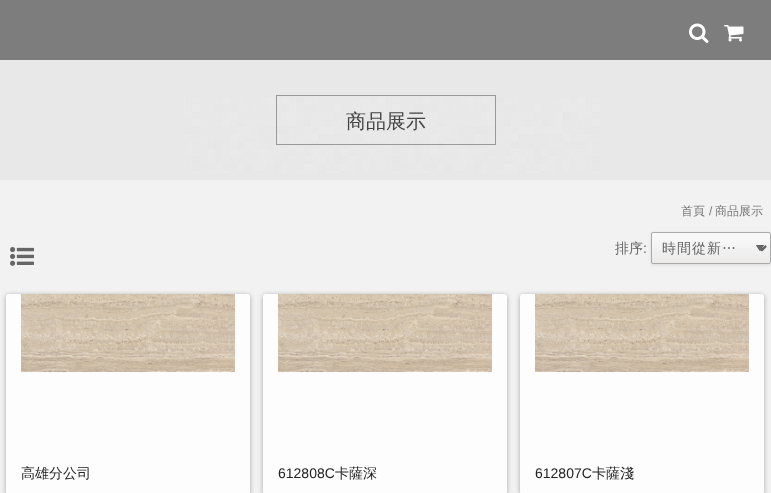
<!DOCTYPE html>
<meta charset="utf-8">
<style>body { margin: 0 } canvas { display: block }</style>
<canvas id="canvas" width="771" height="493"></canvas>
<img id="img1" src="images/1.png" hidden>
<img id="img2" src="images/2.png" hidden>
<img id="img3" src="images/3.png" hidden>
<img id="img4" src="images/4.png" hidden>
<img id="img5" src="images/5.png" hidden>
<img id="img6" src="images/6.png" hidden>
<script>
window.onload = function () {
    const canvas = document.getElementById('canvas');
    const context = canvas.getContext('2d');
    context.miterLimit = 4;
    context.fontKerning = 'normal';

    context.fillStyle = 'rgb(242, 242, 242)';
    context.fillRect(0, 0, 771, 493);
    context.fillStyle = 'rgb(125, 125, 125)';
    context.fillRect(0, 0, 771, 60);
    context.drawImage(document.getElementById('img1'), 689, 23, 20, 20);
    context.drawImage(document.getElementById('img2'), 724, 25, 20, 17);
    context.fillStyle = 'rgb(232, 232, 232)';
    context.fillRect(0, 60, 771, 120);
    context.drawImage(document.getElementById('img3'), 184, 98, 416, 75);
    context.strokeStyle = 'rgb(153, 153, 153)';
    context.strokeRect(276.5, 95.5, 219, 49);
    context.fillStyle = 'rgba(0, 0, 0, 0.1)';
    context.filter = 'blur(1.5px)';
    context.beginPath();
    context.roundRect(651, 233, 120, 32, 2);
    context.fill();
    context.filter = 'none';
    context.drawImage(document.getElementById('img4'), 652, 233, 118, 30);
    context.beginPath();
    context.roundRect(651.5, 232.5, 119, 31, 1.5);
    context.strokeStyle = 'rgb(170, 170, 170)';
    context.stroke();
    context.beginPath();
    context.moveTo(758, 246);
    context.lineTo(762, 250);
    context.lineTo(766, 246);
    context.strokeStyle = 'rgb(102, 102, 102)';
    context.lineWidth = 2;
    context.stroke();
    context.drawImage(document.getElementById('img5'), 10, 247, 24, 19);
    context.save();
    context.beginPath();
    context.moveTo(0, 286);
    context.lineTo(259, 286);
    context.lineTo(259, 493);
    context.lineTo(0, 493);
    context.closePath();
    context.moveTo(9, 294);
    context.lineTo(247, 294);
    context.bezierCurveTo(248.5, 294, 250, 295.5, 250, 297);
    context.lineTo(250, 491);
    context.bezierCurveTo(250, 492.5, 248.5, 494, 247, 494);
    context.lineTo(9, 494);
    context.bezierCurveTo(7.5, 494, 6, 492.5, 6, 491);
    context.lineTo(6, 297);
    context.bezierCurveTo(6, 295.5, 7.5, 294, 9, 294);
    context.closePath();
    context.clip('evenodd');
    context.fillStyle = 'rgba(0, 0, 0, 0.3)';
    context.filter = 'blur(2.5px)';
    context.beginPath();
    context.roundRect(6, 295, 244, 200, 3);
    context.fill();
    context.filter = 'none';
    context.restore();
    context.fillStyle = 'rgba(255, 255, 255, 0.85)';
    context.beginPath();
    context.roundRect(6, 294, 244, 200, 3);
    context.fill();
    context.drawImage(document.getElementById('img6'), 21, 294, 214, 79);
    context.save();
    context.beginPath();
    context.moveTo(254, 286);
    context.lineTo(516, 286);
    context.lineTo(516, 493);
    context.lineTo(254, 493);
    context.closePath();
    context.moveTo(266, 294);
    context.lineTo(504, 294);
    context.bezierCurveTo(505.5, 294, 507, 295.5, 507, 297);
    context.lineTo(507, 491);
    context.bezierCurveTo(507, 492.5, 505.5, 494, 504, 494);
    context.lineTo(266, 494);
    context.bezierCurveTo(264.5, 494, 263, 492.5, 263, 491);
    context.lineTo(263, 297);
    context.bezierCurveTo(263, 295.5, 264.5, 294, 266, 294);
    context.closePath();
    context.clip('evenodd');
    context.fillStyle = 'rgba(0, 0, 0, 0.3)';
    context.filter = 'blur(2.5px)';
    context.beginPath();
    context.roundRect(263, 295, 244, 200, 3);
    context.fill();
    context.filter = 'none';
    context.restore();
    context.beginPath();
    context.roundRect(263, 294, 244, 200, 3);
    context.fill();
    context.drawImage(document.getElementById('img6'), 278, 294, 214, 79);
    context.save();
    context.beginPath();
    context.moveTo(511, 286);
    context.lineTo(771, 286);
    context.lineTo(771, 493);
    context.lineTo(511, 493);
    context.closePath();
    context.moveTo(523, 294);
    context.lineTo(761, 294);
    context.bezierCurveTo(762.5, 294, 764, 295.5, 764, 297);
    context.lineTo(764, 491);
    context.bezierCurveTo(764, 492.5, 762.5, 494, 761, 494);
    context.lineTo(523, 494);
    context.bezierCurveTo(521.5, 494, 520, 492.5, 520, 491);
    context.lineTo(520, 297);
    context.bezierCurveTo(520, 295.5, 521.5, 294, 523, 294);
    context.closePath();
    context.clip('evenodd');
    context.fillStyle = 'rgba(0, 0, 0, 0.3)';
    context.filter = 'blur(2.5px)';
    context.beginPath();
    context.roundRect(520, 295, 244, 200, 3);
    context.fill();
    context.filter = 'none';
    context.restore();
    context.beginPath();
    context.roundRect(520, 294, 244, 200, 3);
    context.fill();
    context.drawImage(document.getElementById('img6'), 535, 294, 214, 79);
    context.font = '500 20px WenQuanYi Zen Hei';
    context.fillStyle = 'rgb(69, 69, 69)';
    context.fillText('商品展示', 346, 128);
    context.font = '500 12px WenQuanYi Zen Hei';
    context.fillStyle = 'rgb(119, 119, 119)';
    context.fillText('首頁', 681, 215);
    context.font = '12px Liberation Sans';
    context.fillText('/', 709, 215);
    context.font = '500 12px WenQuanYi Zen Hei';
    context.fillText('商品展示', 715, 215);
    context.font = '500 14px WenQuanYi Zen Hei';
    context.fillStyle = 'rgb(102, 102, 102)';
    context.fillText('排序', 615, 253);
    context.font = '14px Liberation Sans';
    context.fillText(':', 643, 253);
    context.letterSpacing = '1px';
    context.font = '500 14px WenQuanYi Zen Hei';
    context.fillText('時間從新…', 662, 253);
    context.letterSpacing = '0px';
    context.fillStyle = 'rgb(34, 34, 34)';
    context.fillText('高雄分公司', 21, 478);
    context.font = '14px Liberation Sans';
    context.fillText('612808C', 278, 478);
    context.font = '500 14px WenQuanYi Zen Hei';
    context.fillText('卡薩深', 335, 478);
    context.font = '14px Liberation Sans';
    context.fillText('612807C', 535, 478);
    context.font = '500 14px WenQuanYi Zen Hei';
    context.fillText('卡薩淺', 592, 478);
};
</script>
